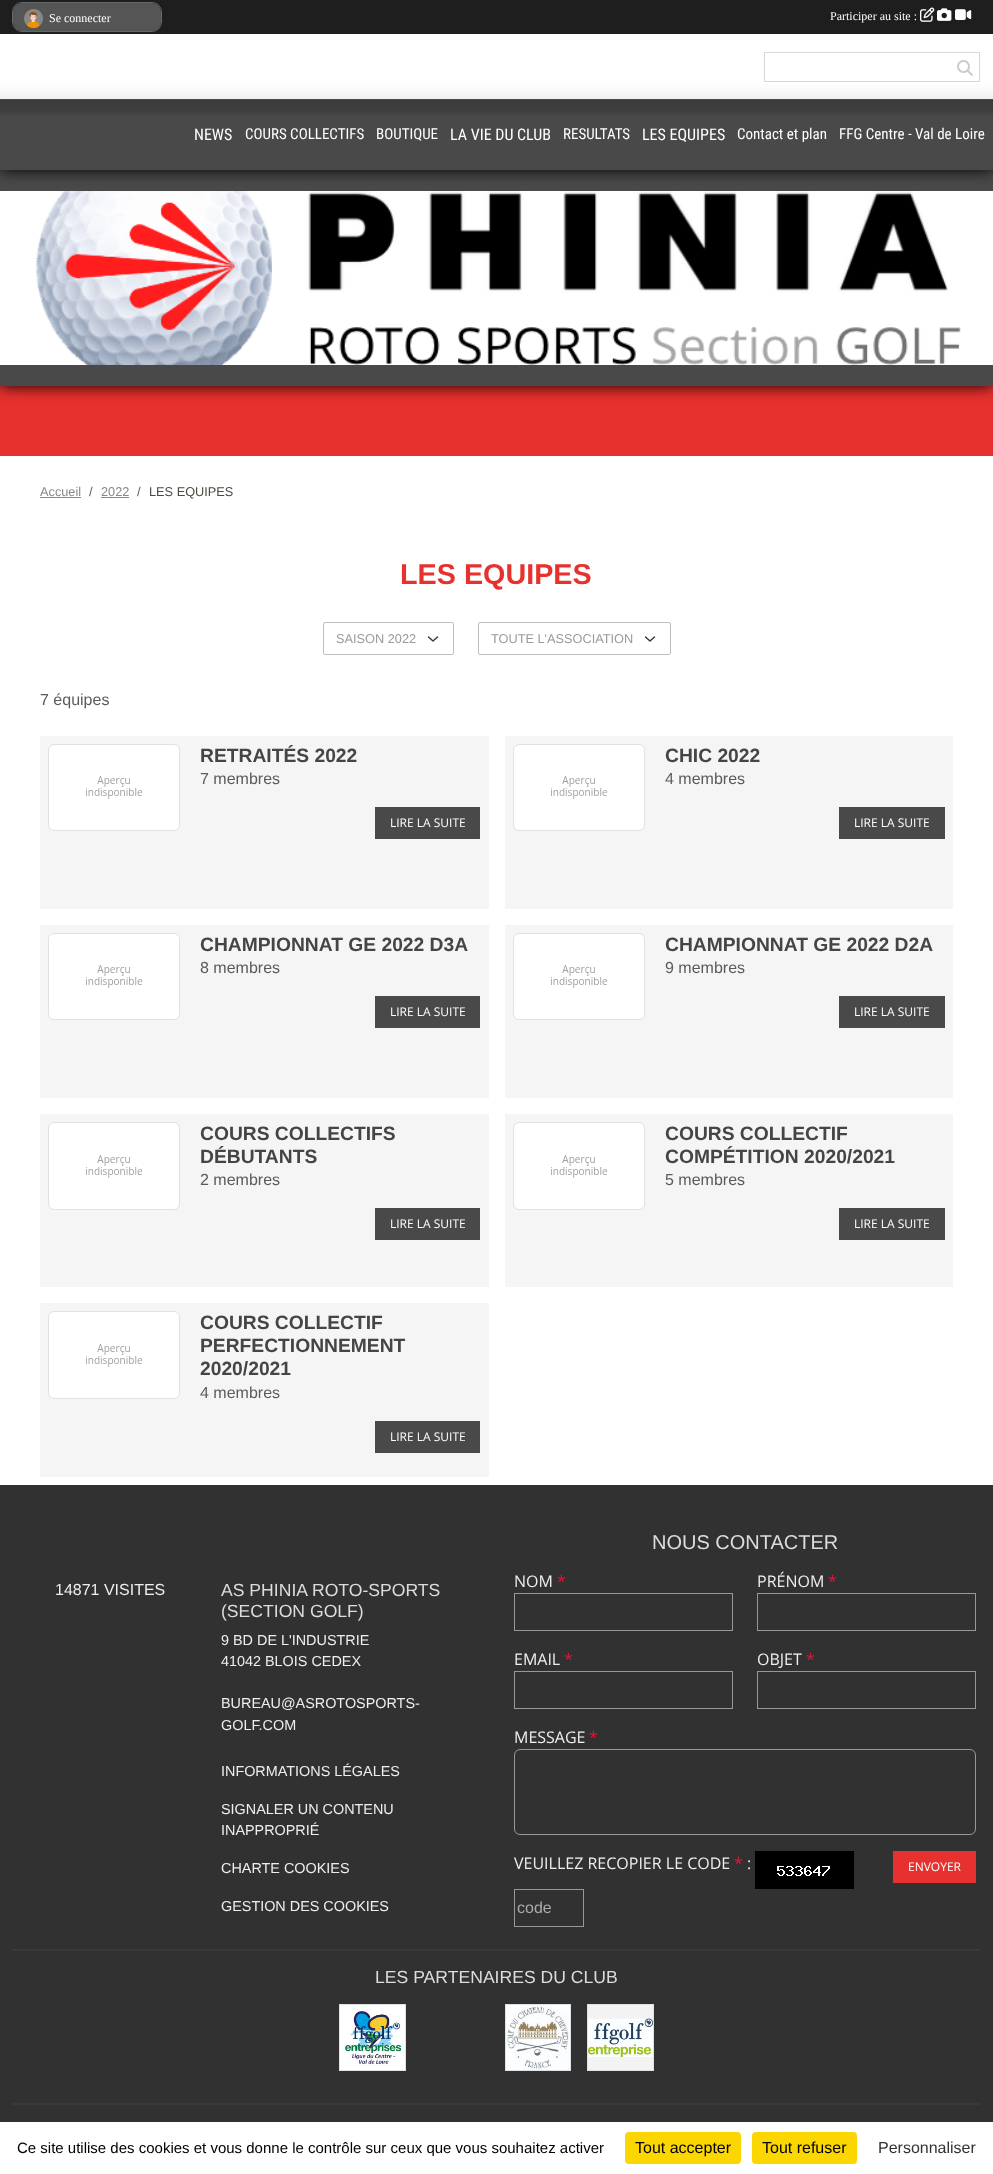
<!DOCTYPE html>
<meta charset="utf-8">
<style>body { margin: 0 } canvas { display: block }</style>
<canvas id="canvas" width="993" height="2174"></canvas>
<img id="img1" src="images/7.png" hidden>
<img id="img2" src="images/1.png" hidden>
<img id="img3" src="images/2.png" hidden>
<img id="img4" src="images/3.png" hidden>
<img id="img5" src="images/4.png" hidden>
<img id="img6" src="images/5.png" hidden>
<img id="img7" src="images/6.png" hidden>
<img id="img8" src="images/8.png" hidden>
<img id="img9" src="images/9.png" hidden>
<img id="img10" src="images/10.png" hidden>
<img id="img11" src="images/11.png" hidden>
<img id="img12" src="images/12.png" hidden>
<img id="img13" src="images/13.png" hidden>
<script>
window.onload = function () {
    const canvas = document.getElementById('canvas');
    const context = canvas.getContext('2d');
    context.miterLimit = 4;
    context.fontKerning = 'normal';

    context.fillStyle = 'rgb(49, 49, 49)';
    context.fillRect(0, 0, 993, 2174);
    context.fillStyle = 'rgb(230, 49, 46)';
    context.fillRect(0, 386, 993, 70);
    context.fillStyle = 'rgb(0, 0, 0)';
    context.filter = 'blur(7.5px)';
    context.beginPath();
    context.rect(0, 170, 993, 216);
    context.fill();
    context.filter = 'none';
    context.fillStyle = 'rgb(73, 73, 73)';
    context.fillRect(0, 170, 993, 216);
    context.drawImage(document.getElementById('img1'), 0, 191, 993, 174);
    context.fillStyle = 'rgb(0, 0, 0)';
    context.filter = 'blur(7.5px)';
    context.beginPath();
    context.rect(0, 34, 993, 136);
    context.fill();
    context.filter = 'none';
    context.fillStyle = 'rgb(30, 30, 30)';
    context.fillRect(0, 0, 993, 34);
    context.beginPath();
    context.roundRect(12.5, 2.5, 149, 29, 9.5);
    context.strokeStyle = 'rgb(102, 102, 102)';
    context.stroke();
    context.fillStyle = 'rgb(85, 85, 85)';
    context.beginPath();
    context.roundRect(13, 3, 148, 28, 9);
    context.fill();
    context.drawImage(document.getElementById('img2'), 24, 9, 19, 19);
    context.drawImage(document.getElementById('img3'), 920, 7, 15, 15);
    context.drawImage(document.getElementById('img4'), 937, 8, 15, 13);
    context.drawImage(document.getElementById('img5'), 955, 9, 17, 11);
    context.fillStyle = 'rgb(73, 73, 73)';
    context.fillRect(0, 99, 993, 71);
    context.drawImage(document.getElementById('img6'), 0, 34, 993, 81);
    context.strokeStyle = 'rgb(216, 216, 216)';
    context.strokeRect(764.5, 52.5, 215, 29);
    context.drawImage(document.getElementById('img7'), 957, 60, 16, 16);
    context.fillStyle = 'rgb(255, 255, 255)';
    context.fillRect(0, 456, 993, 1029);
    context.fillStyle = 'rgb(136, 136, 136)';
    context.fillRect(40, 497, 41, 1);
    context.fillRect(101, 497, 28, 1);
    context.beginPath();
    context.moveTo(428.5, 637);
    context.lineTo(433, 641);
    context.lineTo(437.5, 637);
    context.strokeStyle = 'rgb(52, 58, 64)';
    context.lineWidth = 1.5;
    context.lineCap = 'round';
    context.lineJoin = 'round';
    context.stroke();
    context.beginPath();
    context.roundRect(323.5, 622.5, 130, 32, 1.5);
    context.strokeStyle = 'rgb(192, 192, 192)';
    context.lineWidth = 1;
    context.lineJoin = 'miter';
    context.stroke();
    context.beginPath();
    context.moveTo(645.5, 637);
    context.lineTo(650, 641);
    context.lineTo(654.5, 637);
    context.strokeStyle = 'rgb(52, 58, 64)';
    context.lineWidth = 1.5;
    context.lineJoin = 'round';
    context.stroke();
    context.beginPath();
    context.roundRect(478.5, 622.5, 192, 32, 1.5);
    context.strokeStyle = 'rgb(192, 192, 192)';
    context.lineWidth = 1;
    context.lineJoin = 'miter';
    context.stroke();
    context.fillStyle = 'rgb(245, 245, 245)';
    context.fillRect(40, 736, 449, 173);
    context.fillStyle = 'rgb(255, 255, 255)';
    context.beginPath();
    context.roundRect(48.5, 744.5, 131, 86, 5.5);
    context.fill();
    context.strokeStyle = 'rgb(222, 226, 230)';
    context.stroke();
    context.drawImage(document.getElementById('img8'), 86, 776, 57, 23);
    context.fillStyle = 'rgb(73, 73, 73)';
    context.fillRect(375, 807, 105, 32);
    context.fillStyle = 'rgb(245, 245, 245)';
    context.fillRect(505, 736, 448, 173);
    context.fillStyle = 'rgb(255, 255, 255)';
    context.beginPath();
    context.roundRect(513.5, 744.5, 131, 86, 5.5);
    context.fill();
    context.stroke();
    context.drawImage(document.getElementById('img8'), 551, 776, 57, 23);
    context.fillStyle = 'rgb(73, 73, 73)';
    context.fillRect(839, 807, 106, 32);
    context.fillStyle = 'rgb(245, 245, 245)';
    context.fillRect(40, 925, 449, 173);
    context.fillStyle = 'rgb(255, 255, 255)';
    context.beginPath();
    context.roundRect(48.5, 933.5, 131, 86, 5.5);
    context.fill();
    context.stroke();
    context.drawImage(document.getElementById('img8'), 86, 965, 57, 23);
    context.fillStyle = 'rgb(73, 73, 73)';
    context.fillRect(375, 996, 105, 32);
    context.fillStyle = 'rgb(245, 245, 245)';
    context.fillRect(505, 925, 448, 173);
    context.fillStyle = 'rgb(255, 255, 255)';
    context.beginPath();
    context.roundRect(513.5, 933.5, 131, 86, 5.5);
    context.fill();
    context.stroke();
    context.drawImage(document.getElementById('img8'), 551, 965, 57, 23);
    context.fillStyle = 'rgb(73, 73, 73)';
    context.fillRect(839, 996, 106, 32);
    context.fillStyle = 'rgb(245, 245, 245)';
    context.fillRect(40, 1114, 449, 173);
    context.fillStyle = 'rgb(255, 255, 255)';
    context.beginPath();
    context.roundRect(48.5, 1122.5, 131, 87, 5.5);
    context.fill();
    context.stroke();
    context.drawImage(document.getElementById('img9'), 86, 1155, 57, 23);
    context.fillStyle = 'rgb(73, 73, 73)';
    context.fillRect(375, 1208, 105, 32);
    context.fillStyle = 'rgb(245, 245, 245)';
    context.fillRect(505, 1114, 448, 173);
    context.fillStyle = 'rgb(255, 255, 255)';
    context.beginPath();
    context.roundRect(513.5, 1122.5, 131, 87, 5.5);
    context.fill();
    context.stroke();
    context.drawImage(document.getElementById('img9'), 551, 1155, 57, 23);
    context.fillStyle = 'rgb(73, 73, 73)';
    context.fillRect(839, 1208, 106, 32);
    context.fillStyle = 'rgb(245, 245, 245)';
    context.fillRect(40, 1303, 449, 174);
    context.fillStyle = 'rgb(255, 255, 255)';
    context.beginPath();
    context.roundRect(48.5, 1311.5, 131, 87, 5.5);
    context.fill();
    context.stroke();
    context.drawImage(document.getElementById('img9'), 86, 1344, 57, 23);
    context.fillStyle = 'rgb(73, 73, 73)';
    context.fillRect(375, 1421, 105, 32);
    context.strokeStyle = 'rgb(152, 152, 152)';
    context.strokeRect(514.5, 1593.5, 218, 37);
    context.strokeRect(514.5, 1671.5, 218, 37);
    context.strokeRect(757.5, 1593.5, 218, 37);
    context.strokeRect(757.5, 1671.5, 218, 37);
    context.beginPath();
    context.roundRect(514.5, 1749.5, 461, 85, 5.5);
    context.stroke();
    context.drawImage(document.getElementById('img10'), 755, 1851, 99, 38);
    context.strokeRect(514.5, 1889.5, 69, 37);
    context.fillStyle = 'rgb(230, 49, 46)';
    context.fillRect(893, 1851, 83, 32);
    context.fillStyle = 'rgb(57, 57, 57)';
    context.fillRect(12, 1949, 969, 2);
    context.strokeStyle = 'rgb(222, 226, 230)';
    context.strokeRect(339.5, 2004.5, 66, 66);
    context.drawImage(document.getElementById('img11'), 340, 2005, 65, 65);
    context.strokeRect(505.5, 2004.5, 65, 66);
    context.drawImage(document.getElementById('img12'), 506, 2005, 64, 65);
    context.strokeRect(587.5, 2004.5, 66, 66);
    context.drawImage(document.getElementById('img13'), 588, 2005, 65, 65);
    context.fillRect(12, 2103, 969, 2);
    context.fillStyle = 'rgb(255, 255, 255)';
    context.fillRect(0, 2122, 993, 52);
    context.fillStyle = 'rgb(251, 214, 0)';
    context.beginPath();
    context.roundRect(625, 2132, 116, 32, 4);
    context.fill();
    context.beginPath();
    context.roundRect(752, 2132, 105, 32, 4);
    context.fill();
    context.font = '12px Liberation Serif';
    context.fillStyle = 'rgb(255, 255, 255)';
    context.fillText('Se connecter', 49, 22);
    context.fillText('Participer au site :', 830, 20);
    context.font = '16px Roboto Condensed';
    context.fillText('NEWS', 194, 140);
    context.font = '15px Roboto Condensed';
    context.fillText('COURS COLLECTIFS', 245, 139);
    context.fillText('BOUTIQUE', 376, 139);
    context.font = '16px Roboto Condensed';
    context.fillText('LA VIE DU CLUB', 450, 140);
    context.font = '15px Roboto Condensed';
    context.fillText('RESULTATS', 563, 139);
    context.font = '16px Roboto Condensed';
    context.fillText('LES EQUIPES', 642, 140);
    context.font = '15px Roboto Condensed';
    context.fillText('Contact et plan', 737, 139);
    context.fillText('FFG Centre - Val de Loire', 839, 139);
    context.font = '12.75px Liberation Sans';
    context.fillStyle = 'rgb(136, 136, 136)';
    context.fillText('Accueil', 40, 496);
    context.fillStyle = 'rgb(89, 92, 95)';
    context.fillText('/', 89, 496);
    context.fillStyle = 'rgb(136, 136, 136)';
    context.fillText('2022', 101, 496);
    context.fillStyle = 'rgb(89, 92, 95)';
    context.fillText('/', 137, 496);
    context.fillStyle = 'rgb(74, 74, 62)';
    context.fillText('LES EQUIPES', 149, 496);
    context.font = 'bold 28.75px Liberation Sans';
    context.fillStyle = 'rgb(230, 49, 46)';
    context.fillText('LES EQUIPES', 400, 584);
    context.font = '12.75px Liberation Sans';
    context.fillStyle = 'rgb(154, 154, 154)';
    context.fillText('SAISON 2022', 336, 643);
    context.fillText('TOUTE L\'ASSOCIATION', 491, 643);
    context.font = '16px Liberation Sans';
    context.fillStyle = 'rgb(89, 92, 95)';
    context.fillText('7 équipes', 40, 705);
    context.font = 'bold 19.25px Liberation Sans';
    context.fillStyle = 'rgb(69, 69, 69)';
    context.fillText('RETRAITÉS 2022', 200, 762);
    context.font = '16px Liberation Sans';
    context.fillStyle = 'rgb(89, 92, 95)';
    context.fillText('7 membres', 200, 784);
    context.font = '12px Open Sans';
    context.fillStyle = 'rgb(255, 255, 255)';
    context.fillText('LIRE LA SUITE', 390, 827);
    context.font = 'bold 19.25px Liberation Sans';
    context.fillStyle = 'rgb(69, 69, 69)';
    context.fillText('CHIC 2022', 665, 762);
    context.font = '16px Liberation Sans';
    context.fillStyle = 'rgb(89, 92, 95)';
    context.fillText('4 membres', 665, 784);
    context.font = '12px Open Sans';
    context.fillStyle = 'rgb(255, 255, 255)';
    context.fillText('LIRE LA SUITE', 854, 827);
    context.font = 'bold 19.25px Liberation Sans';
    context.fillStyle = 'rgb(69, 69, 69)';
    context.fillText('CHAMPIONNAT GE 2022 D3A', 200, 951);
    context.font = '16px Liberation Sans';
    context.fillStyle = 'rgb(89, 92, 95)';
    context.fillText('8 membres', 200, 973);
    context.font = '12px Open Sans';
    context.fillStyle = 'rgb(255, 255, 255)';
    context.fillText('LIRE LA SUITE', 390, 1016);
    context.font = 'bold 19.25px Liberation Sans';
    context.fillStyle = 'rgb(69, 69, 69)';
    context.fillText('CHAMPIONNAT GE 2022 D2A', 665, 951);
    context.font = '16px Liberation Sans';
    context.fillStyle = 'rgb(89, 92, 95)';
    context.fillText('9 membres', 665, 973);
    context.font = '12px Open Sans';
    context.fillStyle = 'rgb(255, 255, 255)';
    context.fillText('LIRE LA SUITE', 854, 1016);
    context.font = 'bold 19.25px Liberation Sans';
    context.fillStyle = 'rgb(69, 69, 69)';
    context.fillText('COURS COLLECTIFS', 200, 1140);
    context.fillText('DÉBUTANTS', 200, 1163);
    context.font = '16px Liberation Sans';
    context.fillStyle = 'rgb(89, 92, 95)';
    context.fillText('2 membres', 200, 1185);
    context.font = '12px Open Sans';
    context.fillStyle = 'rgb(255, 255, 255)';
    context.fillText('LIRE LA SUITE', 390, 1228);
    context.font = 'bold 19.25px Liberation Sans';
    context.fillStyle = 'rgb(69, 69, 69)';
    context.fillText('COURS COLLECTIF', 665, 1140);
    context.fillText('COMPÉTITION 2020/2021', 665, 1163);
    context.font = '16px Liberation Sans';
    context.fillStyle = 'rgb(89, 92, 95)';
    context.fillText('5 membres', 665, 1185);
    context.font = '12px Open Sans';
    context.fillStyle = 'rgb(255, 255, 255)';
    context.fillText('LIRE LA SUITE', 854, 1228);
    context.font = 'bold 19.25px Liberation Sans';
    context.fillStyle = 'rgb(69, 69, 69)';
    context.fillText('COURS COLLECTIF', 200, 1329);
    context.fillText('PERFECTIONNEMENT', 200, 1352);
    context.fillText('2020/2021', 200, 1375);
    context.font = '16px Liberation Sans';
    context.fillStyle = 'rgb(89, 92, 95)';
    context.fillText('4 membres', 200, 1398);
    context.font = '12px Open Sans';
    context.fillStyle = 'rgb(255, 255, 255)';
    context.fillText('LIRE LA SUITE', 390, 1441);
    context.font = '16px Liberation Sans';
    context.fillStyle = 'rgb(238, 238, 238)';
    context.fillText('14871 VISITES', 55, 1595);
    context.font = '17.6px Liberation Sans';
    context.fillStyle = 'rgb(221, 221, 221)';
    context.fillText('AS PHINIA ROTO-SPORTS', 221, 1596);
    context.fillText('(SECTION GOLF)', 221, 1617);
    context.font = '14.4px Liberation Sans';
    context.fillStyle = 'rgb(238, 238, 238)';
    context.fillText('9 BD DE L\'INDUSTRIE', 221, 1645);
    context.fillText('41042 BLOIS CEDEX', 221, 1666);
    context.fillText('BUREAU@ASROTOSPORTS-', 221, 1708);
    context.fillText('GOLF.COM', 221, 1730);
    context.fillText('INFORMATIONS LÉGALES', 221, 1776);
    context.fillText('SIGNALER UN CONTENU', 221, 1814);
    context.fillText('INAPPROPRIÉ', 221, 1835);
    context.fillText('CHARTE COOKIES', 221, 1873);
    context.fillText('GESTION DES COOKIES', 221, 1911);
    context.font = '20px Liberation Sans';
    context.fillStyle = 'rgb(221, 221, 221)';
    context.fillText('NOUS CONTACTER', 652, 1549);
    context.font = '16px Open Sans';
    context.fillStyle = 'rgb(238, 238, 238)';
    context.fillText('NOM', 514, 1587);
    context.fillStyle = 'rgb(228, 19, 58)';
    context.fillText('*', 557, 1587);
    context.fillStyle = 'rgb(238, 238, 238)';
    context.fillText('EMAIL', 514, 1665);
    context.fillStyle = 'rgb(228, 19, 58)';
    context.fillText('*', 564, 1665);
    context.fillStyle = 'rgb(238, 238, 238)';
    context.fillText('PRÉNOM', 757, 1587);
    context.fillStyle = 'rgb(228, 19, 58)';
    context.fillText('*', 828, 1587);
    context.fillStyle = 'rgb(238, 238, 238)';
    context.fillText('OBJET', 757, 1665);
    context.fillStyle = 'rgb(228, 19, 58)';
    context.fillText('*', 806, 1665);
    context.fillStyle = 'rgb(238, 238, 238)';
    context.fillText('MESSAGE', 514, 1743);
    context.fillStyle = 'rgb(228, 19, 58)';
    context.fillText('*', 589, 1743);
    context.fillStyle = 'rgb(238, 238, 238)';
    context.fillText('VEUILLEZ RECOPIER LE CODE', 514, 1869);
    context.fillStyle = 'rgb(228, 19, 58)';
    context.fillText('*', 734, 1869);
    context.fillStyle = 'rgb(238, 238, 238)';
    context.fillText(':', 747, 1869);
    context.font = '16px Liberation Sans';
    context.fillStyle = 'rgb(170, 170, 170)';
    context.fillText('code', 517, 1913);
    context.font = '12px Open Sans';
    context.fillStyle = 'rgb(255, 255, 255)';
    context.fillText('ENVOYER', 908, 1871);
    context.font = '17.6px Liberation Sans';
    context.fillStyle = 'rgb(221, 221, 221)';
    context.fillText('LES PARTENAIRES DU CLUB', 375, 1983);
    context.font = '15px Liberation Sans';
    context.fillStyle = 'rgb(0, 0, 0)';
    context.fillText('Ce site utilise des cookies et vous donne le contrôle sur ceux que vous souhaitez activer', 17, 2153);
    context.font = '16px Liberation Sans';
    context.fillText('Tout accepter', 635, 2153);
    context.fillText('Tout refuser', 762, 2153);
    context.fillStyle = 'rgb(51, 51, 51)';
    context.fillText('Personnaliser', 878, 2153);
};
</script>
